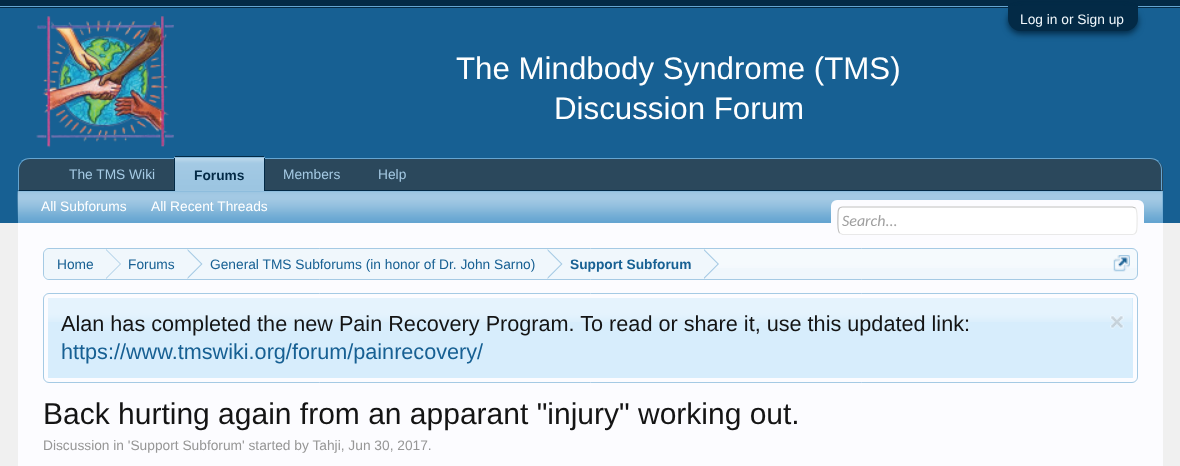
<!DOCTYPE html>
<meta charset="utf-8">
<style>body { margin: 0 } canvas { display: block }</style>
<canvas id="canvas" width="1180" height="466"></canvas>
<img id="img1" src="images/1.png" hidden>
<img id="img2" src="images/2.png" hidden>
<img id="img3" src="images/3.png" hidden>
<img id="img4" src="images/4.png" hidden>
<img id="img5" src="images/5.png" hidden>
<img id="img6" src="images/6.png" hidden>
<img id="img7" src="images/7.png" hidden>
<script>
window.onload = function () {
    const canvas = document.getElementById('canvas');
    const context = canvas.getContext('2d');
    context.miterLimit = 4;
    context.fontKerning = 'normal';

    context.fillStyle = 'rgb(240, 240, 240)';
    context.fillRect(0, 0, 1180, 466);
    context.fillStyle = 'rgb(3, 42, 70)';
    context.fillRect(0, 0, 1180, 8);
    context.fillStyle = 'rgb(101, 165, 209)';
    context.fillRect(0, 6, 1180, 1);
    context.fillStyle = 'rgb(23, 96, 147)';
    context.fillRect(0, 8, 1180, 215);
    context.fillStyle = 'rgb(3, 42, 70)';
    context.filter = 'blur(3px)';
    context.beginPath();
    context.roundRect(1008, 9, 130, 25, 12.5);
    context.fill();
    context.filter = 'none';
    context.beginPath();
    context.roundRect(1008, 6, 130, 25, [0, 0, 12.5, 12.5]);
    context.fill();
    context.drawImage(document.getElementById('img1'), 36, 16, 138, 132);
    context.fillStyle = 'rgb(43, 72, 92)';
    context.beginPath();
    context.roundRect(18, 158, 1145, 33, [13, 13, 0, 0]);
    context.fill();
    context.fillStyle = 'rgb(101, 165, 209)';
    context.beginPath();
    context.moveTo(30, 158);
    context.bezierCurveTo(26, 158, 24, 159, 21, 161);
    context.lineTo(22, 162);
    context.bezierCurveTo(24, 160, 27, 159, 30, 159);
    context.lineTo(1150, 159);
    context.bezierCurveTo(1153, 159, 1156, 160, 1158, 162);
    context.lineTo(1159, 161);
    context.bezierCurveTo(1156, 159, 1154, 158, 1150, 158);
    context.closePath();
    context.fill();
    context.beginPath();
    context.moveTo(1162, 191);
    context.lineTo(1162, 170);
    context.bezierCurveTo(1162, 166.5, 1161, 163.5, 1158.5, 161.5);
    context.lineTo(1158, 162);
    context.bezierCurveTo(1160, 164, 1161, 167, 1161, 170);
    context.lineTo(1161, 190);
    context.closePath();
    context.fill();
    context.fillStyle = 'rgb(3, 42, 70)';
    context.beginPath();
    context.moveTo(1162, 191);
    context.lineTo(18, 191);
    context.lineTo(19, 190);
    context.lineTo(1161, 190);
    context.closePath();
    context.fill();
    context.fillStyle = 'rgb(101, 165, 209)';
    context.beginPath();
    context.moveTo(21.5, 161.5);
    context.bezierCurveTo(19, 163.5, 18, 166.5, 18, 170);
    context.lineTo(18, 191);
    context.lineTo(19, 190);
    context.lineTo(19, 170);
    context.bezierCurveTo(19, 167, 20, 164, 22, 162);
    context.closePath();
    context.fill();
    context.beginPath();
    context.roundRect(174, 156, 91, 35, [2.5, 2.5, 0, 0]);
    context.fill();
    context.drawImage(document.getElementById('img2'), 173, 157, 92, 34);
    context.fillStyle = 'rgb(3, 42, 70)';
    context.fillRect(175, 156, 89, 1);
    context.fillRect(264, 158, 1, 33);
    context.fillRect(174, 158, 1, 33);
    context.fillStyle = 'rgb(101, 165, 209)';
    context.fillRect(18, 191, 1145, 32);
    context.drawImage(document.getElementById('img3'), 17, 191, 1146, 30);
    context.fillStyle = 'rgb(252, 252, 255)';
    context.fillRect(18, 223, 1145, 243);
    context.beginPath();
    context.roundRect(831, 200, 313, 35, 6);
    context.fill();
    context.fillStyle = 'rgb(255, 255, 255)';
    context.beginPath();
    context.roundRect(838, 206, 300, 29, 5);
    context.fill();
    context.beginPath();
    context.moveTo(1135.5, 208);
    context.bezierCurveTo(1138, 211, 1137, 223, 1137, 227);
    context.bezierCurveTo(1137, 230, 1137, 234.5, 1132.5, 234.5);
    context.lineTo(842.5, 234.5);
    context.lineTo(839.5, 233);
    context.strokeStyle = 'rgb(233, 233, 233)';
    context.lineWidth = 1.2;
    context.stroke();
    context.beginPath();
    context.moveTo(839.5, 233);
    context.bezierCurveTo(837, 230.5, 838, 218, 838, 214.5);
    context.bezierCurveTo(838, 211, 838, 207, 842.5, 207);
    context.lineTo(1132.5, 207);
    context.lineTo(1135.5, 208);
    context.strokeStyle = 'rgb(192, 192, 192)';
    context.stroke();
    context.fillStyle = 'rgb(240, 247, 252)';
    context.beginPath();
    context.roundRect(43, 248, 1095, 32, 6);
    context.fill();
    context.drawImage(document.getElementById('img4'), 43, 249, 1094, 19);
    context.beginPath();
    context.roundRect(43.5, 248.5, 1094, 31, 5.5);
    context.strokeStyle = 'rgb(165, 202, 228)';
    context.lineWidth = 1;
    context.stroke();
    context.save();
    context.beginPath();
    context.roundRect(44, 249, 1092, 30, 5);
    context.clip();
    context.beginPath();
    context.roundRect(44, 249, 62, 31, [6, 0, 0, 6]);
    context.fill();
    context.restore();
    context.fillRect(106, 249, 598, 19);
    context.fillStyle = 'rgb(165, 202, 228)';
    context.beginPath();
    context.moveTo(106, 279);
    context.lineTo(106, 249);
    context.lineTo(121, 264);
    context.closePath();
    context.fill();
    context.fillStyle = 'rgb(240, 247, 252)';
    context.beginPath();
    context.moveTo(105, 279);
    context.lineTo(105, 249);
    context.lineTo(120, 264);
    context.closePath();
    context.fill();
    context.fillStyle = 'rgb(165, 202, 228)';
    context.beginPath();
    context.moveTo(187.5, 279);
    context.lineTo(187.5, 249);
    context.lineTo(202.5, 264);
    context.closePath();
    context.fill();
    context.fillStyle = 'rgb(240, 247, 252)';
    context.beginPath();
    context.moveTo(186, 279);
    context.lineTo(186, 249);
    context.lineTo(201, 264);
    context.closePath();
    context.fill();
    context.fillStyle = 'rgb(165, 202, 228)';
    context.beginPath();
    context.moveTo(547.5, 279);
    context.lineTo(547.5, 249);
    context.lineTo(562.5, 264);
    context.closePath();
    context.fill();
    context.fillStyle = 'rgb(240, 247, 252)';
    context.beginPath();
    context.moveTo(546, 279);
    context.lineTo(546, 249);
    context.lineTo(561, 264);
    context.closePath();
    context.fill();
    context.fillStyle = 'rgb(165, 202, 228)';
    context.beginPath();
    context.moveTo(704, 279);
    context.lineTo(704, 249);
    context.lineTo(719, 264);
    context.closePath();
    context.fill();
    context.fillStyle = 'rgb(240, 247, 252)';
    context.beginPath();
    context.moveTo(702.5, 279);
    context.lineTo(702.5, 249);
    context.lineTo(717.5, 264);
    context.closePath();
    context.fill();
    context.drawImage(document.getElementById('img5'), 1113, 255, 17, 17);
    context.beginPath();
    context.roundRect(43.5, 293.5, 1094, 89, 5.5);
    context.stroke();
    context.fillStyle = 'rgb(215, 237, 252)';
    context.fillRect(48, 298, 1085, 80);
    context.drawImage(document.getElementById('img6'), 48, 298, 1084, 24);
    context.drawImage(document.getElementById('img7'), 1110, 315, 14, 14);
    context.font = '13.75px Liberation Sans';
    context.fillStyle = 'rgb(240, 247, 252)';
    context.fillText('Log in or Sign up', 1020, 24);
    context.font = '31.25px Liberation Sans';
    context.fillStyle = 'rgb(255, 255, 255)';
    context.fillText('The Mindbody Syndrome (TMS)', 456, 79);
    context.fillText('Discussion Forum', 554, 119);
    context.font = '13.75px Liberation Sans';
    context.fillStyle = 'rgb(165, 202, 228)';
    context.fillText('The TMS Wiki', 69, 179);
    context.fillText('Members', 283, 179);
    context.fillText('Help', 378, 179);
    context.font = 'bold 13.75px Liberation Sans';
    context.fillStyle = 'rgb(3, 42, 70)';
    context.fillText('Forums', 194, 180);
    context.font = '13.75px Liberation Sans';
    context.fillStyle = 'rgb(255, 255, 255)';
    context.fillText('All Subforums', 41, 211);
    context.fillText('All Recent Threads', 151, 211);
    context.font = 'italic 16px Carlito';
    context.fillStyle = 'rgb(160, 160, 160)';
    context.fillText('Search...', 842, 226);
    context.font = '13.75px Liberation Sans';
    context.fillStyle = 'rgb(23, 96, 147)';
    context.fillText('Home', 57, 269);
    context.fillText('Forums', 128, 269);
    context.fillText('General TMS Subforums (in honor of Dr. John Sarno)', 210, 269);
    context.font = 'bold 13.75px Liberation Sans';
    context.fillText('Support Subforum', 570, 269);
    context.font = '21.65px Liberation Sans';
    context.fillStyle = 'rgb(20, 20, 20)';
    context.fillText('Alan has completed the new Pain Recovery Program. To read or share it, use this updated link:', 61, 331);
    context.fillStyle = 'rgb(23, 96, 147)';
    context.fillText('https://www.tmswiki.org/forum/painrecovery/', 61, 359);
    context.font = '30px Liberation Sans';
    context.fillStyle = 'rgb(20, 20, 20)';
    context.fillText('Back hurting again from an apparant "injury" working out.', 43, 424);
    context.font = '13.75px Liberation Sans';
    context.fillStyle = 'rgb(150, 150, 150)';
    context.fillText('Discussion in \'Support Subforum\' started by Tahji, Jun 30, 2017.', 43, 450);
};
</script>
